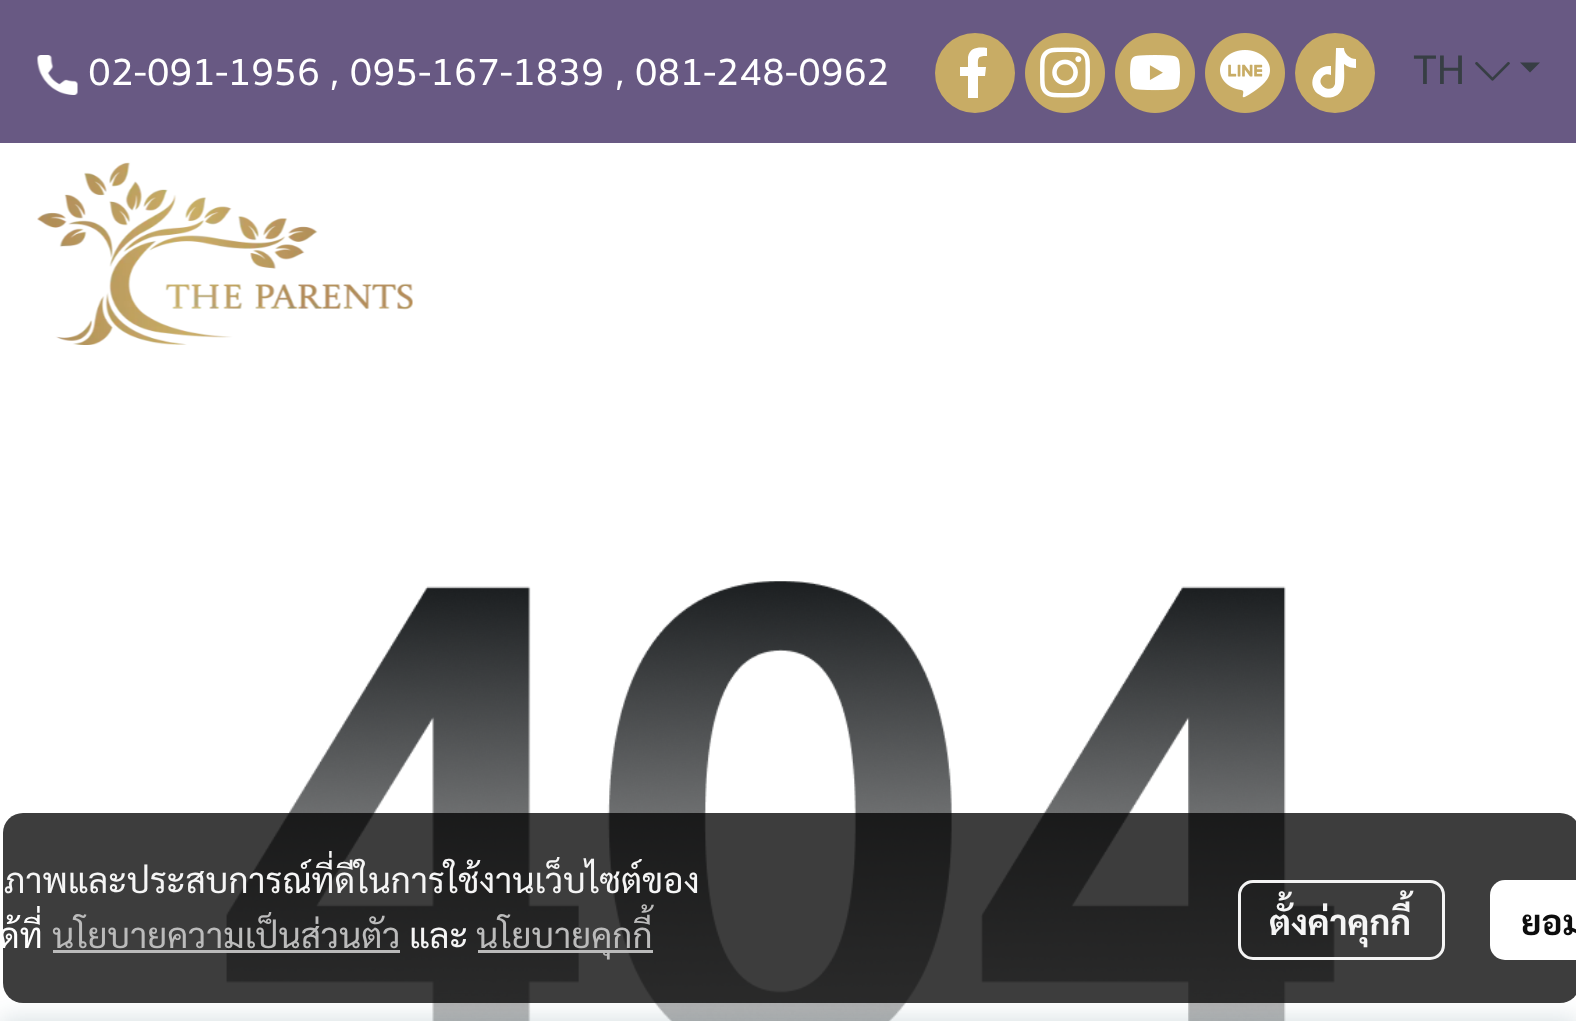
<!DOCTYPE html>
<meta charset="utf-8">
<style>body { margin: 0 } canvas { display: block }</style>
<canvas id="canvas" width="1576" height="1021"></canvas>
<img id="img1" src="images/1.png" hidden>
<img id="img2" src="images/2.png" hidden>
<img id="img3" src="images/3.png" hidden>
<img id="img4" src="images/4.png" hidden>
<img id="img5" src="images/5.png" hidden>
<img id="img6" src="images/6.png" hidden>
<img id="img7" src="images/7.png" hidden>
<script>
window.onload = function () {
    const canvas = document.getElementById('canvas');
    const context = canvas.getContext('2d');
    context.miterLimit = 4;
    context.fontKerning = 'normal';

    context.fillStyle = 'rgb(255, 255, 255)';
    context.fillRect(0, 0, 1576, 1021);
    context.fillStyle = 'rgb(104, 89, 131)';
    context.fillRect(0, 0, 1576, 143);
    context.drawImage(document.getElementById('img1'), 37, 55, 41, 40);
    context.fillStyle = 'rgb(200, 172, 101)';
    context.beginPath();
    context.arc(975, 73, 40, 0, 2 * Math.PI);
    context.fill();
    context.fillStyle = 'rgb(255, 255, 255)';
    context.beginPath();
    context.moveTo(985, 76);
    context.lineTo(978, 76);
    context.lineTo(978, 98);
    context.lineTo(968, 98);
    context.lineTo(968, 76);
    context.lineTo(960, 76);
    context.lineTo(960, 67);
    context.lineTo(968, 67);
    context.lineTo(968, 57);
    context.bezierCurveTo(970, 47, 979, 47, 987, 48);
    context.lineTo(987, 56);
    context.bezierCurveTo(977, 56, 978, 58, 978, 67);
    context.lineTo(986, 67);
    context.closePath();
    context.fill();
    context.drawImage(document.getElementById('img2'), 1025, 33, 80, 80);
    context.drawImage(document.getElementById('img3'), 1115, 33, 80, 80);
    context.drawImage(document.getElementById('img4'), 1205, 33, 80, 80);
    context.fillStyle = 'rgb(200, 172, 101)';
    context.beginPath();
    context.arc(1335, 73, 40, 0, 2 * Math.PI);
    context.fill();
    context.fillStyle = 'rgb(255, 255, 255)';
    context.beginPath();
    context.moveTo(1356, 68);
    context.bezierCurveTo(1352, 68, 1348, 67, 1344, 64);
    context.bezierCurveTo(1344, 76, 1347, 93, 1333, 97);
    context.bezierCurveTo(1328, 98, 1324, 98, 1320, 95);
    context.bezierCurveTo(1305, 87, 1314, 64, 1331, 66);
    context.lineTo(1331, 75);
    context.bezierCurveTo(1328, 74, 1325, 74, 1323, 76);
    context.bezierCurveTo(1314, 85, 1332, 95, 1335, 84);
    context.lineTo(1336, 48);
    context.lineTo(1344, 48);
    context.bezierCurveTo(1344, 54, 1350, 59, 1356, 59);
    context.closePath();
    context.fill();
    context.drawImage(document.getElementById('img5'), 1475, 62, 35, 19);
    context.fillStyle = 'rgb(55, 62, 68)';
    context.beginPath();
    context.moveTo(1520, 62.5);
    context.lineTo(1540, 62.5);
    context.lineTo(1530, 72.5);
    context.closePath();
    context.fill();
    context.drawImage(document.getElementById('img6'), 37, 162, 376, 183);
    context.drawImage(document.getElementById('img7'), 226, 581, 1109, 440);
    context.fillStyle = 'rgba(0, 53, 74, 0.15)';
    context.filter = 'blur(12.5px)';
    context.beginPath();
    context.rect(0, 1018, 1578, 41);
    context.fill();
    context.filter = 'none';
    context.fillStyle = 'rgba(0, 0, 0, 0.76)';
    context.beginPath();
    context.roundRect(3, 813, 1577, 190, 20);
    context.fill();
    context.fillStyle = 'rgba(194, 194, 194, 0.95)';
    context.fillRect(53, 950, 347, 3);
    context.fillRect(478, 950, 175, 3);
    context.beginPath();
    context.roundRect(1239.5, 881.5, 204, 77, 13.5);
    context.strokeStyle = 'rgba(255, 255, 255, 0.95)';
    context.lineWidth = 3;
    context.stroke();
    context.fillStyle = 'rgb(255, 255, 255)';
    context.beginPath();
    context.roundRect(1490, 880, 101, 80, 15);
    context.fill();
    context.font = '500 40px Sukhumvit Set';
    context.fillText('02-091-1956 , 095-167-1839', 88, 85);
    context.fillText(', 081-248-0962', 615, 85);
    context.font = '40px Roboto';
    context.fillStyle = 'rgb(55, 62, 68)';
    context.fillText('TH', 1413, 84);
    context.font = '35px Sarabun';
    context.fillStyle = 'rgb(245, 245, 245)';
    context.fillText('ภาพและประสบการณ์ที่ดีในการใช้งานเว็บไซต์ของ', 4, 893);
    context.fillStyle = 'rgb(255, 255, 255)';
    context.fillText('ด้ที่', -1, 948);
    context.fillStyle = 'rgb(187, 187, 187)';
    context.fillText('นโยบายความเป็นส่วนตัว', 52, 948);
    context.fillStyle = 'rgb(245, 245, 245)';
    context.fillText('และ', 409, 948);
    context.fillStyle = 'rgb(187, 187, 187)';
    context.fillText('นโยบายคุกกี้', 476, 948);
    context.font = 'bold 35px Sarabun';
    context.fillStyle = 'rgb(245, 245, 245)';
    context.fillText('ตั้งค่าคุกกี้', 1269, 935);
    context.fillStyle = 'rgb(13, 13, 13)';
    context.fillText('ยอม', 1521, 935);
};
</script>
